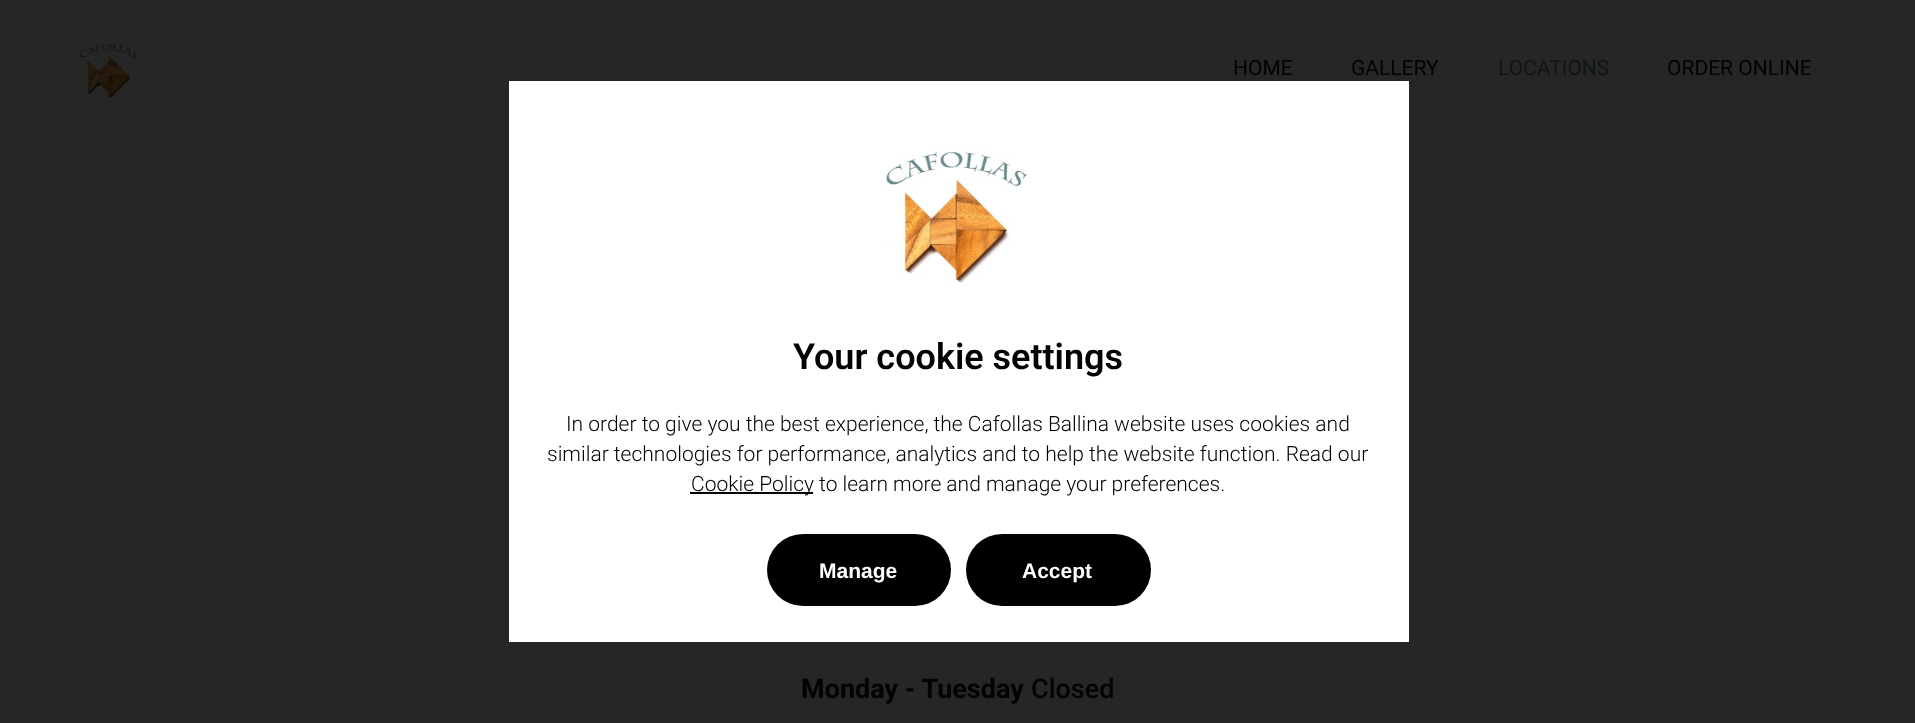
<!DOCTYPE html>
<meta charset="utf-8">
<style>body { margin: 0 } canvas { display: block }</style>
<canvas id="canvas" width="1915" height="723"></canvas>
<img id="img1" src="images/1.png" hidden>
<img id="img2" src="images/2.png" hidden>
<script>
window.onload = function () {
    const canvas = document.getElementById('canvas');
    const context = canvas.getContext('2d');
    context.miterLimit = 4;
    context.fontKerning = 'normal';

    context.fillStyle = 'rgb(38, 38, 38)';
    context.fillRect(0, 0, 1915, 723);
    context.fillStyle = 'rgb(34, 34, 34)';
    context.beginPath();
    context.moveTo(2, 135);
    context.lineTo(2, 137);
    context.lineTo(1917, 137);
    context.lineTo(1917, 2);
    context.lineTo(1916, 2);
    context.lineTo(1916, 135);
    context.closePath();
    context.fill();
    context.drawImage(document.getElementById('img1'), 80, 43, 59, 56);
    context.fillStyle = 'rgb(255, 255, 255)';
    context.fillRect(509, 81, 900, 561);
    context.drawImage(document.getElementById('img2'), 885, 148, 143, 135);
    context.fillStyle = 'rgb(0, 0, 0)';
    context.fillRect(690, 492, 123, 2);
    context.beginPath();
    context.roundRect(767, 534, 184, 72, 36);
    context.fill();
    context.beginPath();
    context.roundRect(966, 534, 185, 72, 36);
    context.fill();
    context.font = '21px Roboto';
    context.fillStyle = 'rgb(5, 3, 2)';
    context.fillText('HOME', 1233, 75);
    context.fillText('GALLERY', 1351, 75);
    context.fillStyle = 'rgb(16, 21, 21)';
    context.fillText('LOCATIONS', 1498, 75);
    context.fillStyle = 'rgb(5, 3, 2)';
    context.fillText('ORDER ONLINE', 1667, 75);
    context.font = 'bold 27px Roboto';
    context.fillText('Monday - Tuesday', 801, 698);
    context.font = '500 27px Roboto';
    context.fillText('Closed', 1031, 698);
    context.font = '600 36px Roboto';
    context.fillText('Your cookie settings', 793, 369);
    context.font = '300 21px Roboto';
    context.fillText('In order to give you the best experience, the Cafollas Ballina website uses cookies and', 566, 431);
    context.fillText('similar technologies for performance, analytics and to help the website function. Read our', 547, 461);
    context.fillText('Cookie Policy to learn more and manage your preferences.', 691, 491);
    context.font = 'bold 21px Liberation Sans';
    context.fillStyle = 'rgb(255, 255, 255)';
    context.fillText('Manage', 819, 578);
    context.fillText('Accept', 1022, 578);
};
</script>
